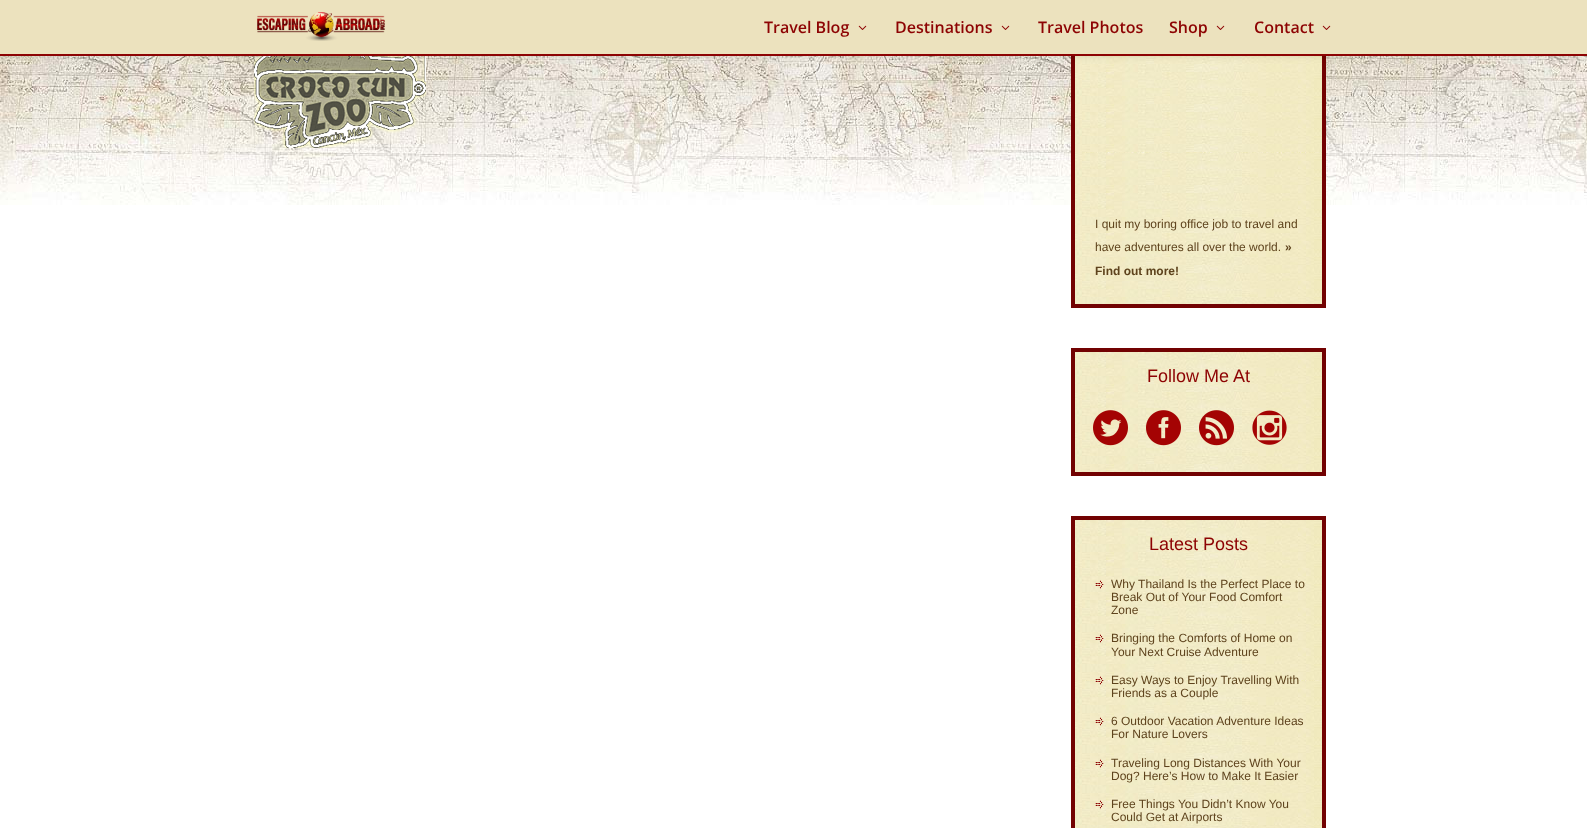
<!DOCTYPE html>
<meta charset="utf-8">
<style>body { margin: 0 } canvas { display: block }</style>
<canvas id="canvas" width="1587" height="828"></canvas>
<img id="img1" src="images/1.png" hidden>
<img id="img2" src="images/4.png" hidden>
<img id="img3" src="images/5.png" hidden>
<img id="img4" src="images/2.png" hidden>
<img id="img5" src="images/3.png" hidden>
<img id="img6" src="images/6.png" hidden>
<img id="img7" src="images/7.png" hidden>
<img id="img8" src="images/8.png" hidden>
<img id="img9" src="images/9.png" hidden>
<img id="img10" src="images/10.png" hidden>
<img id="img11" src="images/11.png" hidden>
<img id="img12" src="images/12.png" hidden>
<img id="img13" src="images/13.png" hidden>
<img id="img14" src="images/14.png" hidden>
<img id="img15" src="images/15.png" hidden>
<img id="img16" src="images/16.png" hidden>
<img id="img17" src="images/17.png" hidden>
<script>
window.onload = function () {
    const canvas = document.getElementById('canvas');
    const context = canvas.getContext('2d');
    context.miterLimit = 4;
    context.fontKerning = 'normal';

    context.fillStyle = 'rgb(255, 255, 255)';
    context.fillRect(0, 0, 1587, 828);
    context.drawImage(document.getElementById('img1'), 0, 56, 1587, 149);
    context.drawImage(document.getElementById('img2'), 254, 56, 172, 92);
    context.drawImage(document.getElementById('img3'), 1075, 56, 247, 248);
    context.strokeStyle = 'rgb(114, 2, 2)';
    context.lineWidth = 4;
    context.strokeRect(1073, -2, 251, 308);
    context.fillStyle = 'rgba(0, 0, 0, 0.1)';
    context.filter = 'blur(3.5px)';
    context.beginPath();
    context.rect(0, 0, 1587, 56);
    context.fill();
    context.filter = 'none';
    context.fillStyle = 'rgb(236, 226, 190)';
    context.fillRect(0, 0, 1587, 54);
    context.fillStyle = 'rgb(141, 3, 3)';
    context.fillRect(0, 54, 1587, 2);
    context.drawImage(document.getElementById('img4'), 257, 12, 128, 29);
    context.drawImage(document.getElementById('img5'), 858, 25, 9, 5);
    context.drawImage(document.getElementById('img5'), 1001, 25, 9, 5);
    context.drawImage(document.getElementById('img5'), 1216, 25, 9, 5);
    context.drawImage(document.getElementById('img5'), 1322, 25, 9, 5);
    context.drawImage(document.getElementById('img6'), 1075, 352, 247, 120);
    context.strokeRect(1073, 350, 251, 124);
    context.drawImage(document.getElementById('img7'), 1093, 410, 35, 36);
    context.drawImage(document.getElementById('img8'), 1146, 410, 35, 36);
    context.drawImage(document.getElementById('img9'), 1199, 410, 35, 36);
    context.drawImage(document.getElementById('img10'), 1252, 410, 35, 35);
    context.drawImage(document.getElementById('img11'), 1075, 520, 247, 308);
    context.strokeRect(1073, 518, 251, 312);
    context.drawImage(document.getElementById('img12'), 1095, 580, 9, 9);
    context.drawImage(document.getElementById('img13'), 1095, 634, 9, 9);
    context.drawImage(document.getElementById('img14'), 1095, 676, 9, 9);
    context.drawImage(document.getElementById('img15'), 1095, 717, 9, 9);
    context.drawImage(document.getElementById('img16'), 1095, 759, 9, 9);
    context.drawImage(document.getElementById('img17'), 1095, 800, 9, 9);
    context.font = '600 16px Open Sans';
    context.fillText('Travel Blog', 764, 33);
    context.fillText('Destinations', 895, 33);
    context.fillText('Travel Photos', 1038, 33);
    context.fillText('Shop', 1169, 33);
    context.fillText('Contact', 1254, 33);
    context.font = '12px Liberation Sans';
    context.fillStyle = 'rgb(94, 67, 29)';
    context.fillText('I quit my boring office job to travel and', 1095, 228);
    context.fillText('have adventures all over the world.', 1095, 251);
    context.font = 'bold 12px Liberation Sans';
    context.fillText('»', 1285, 251);
    context.fillText('Find out more!', 1095, 275);
    context.font = '18px Liberation Sans';
    context.fillStyle = 'rgb(141, 3, 3)';
    context.fillText('Follow Me At', 1147, 382);
    context.fillText('Latest Posts', 1149, 550);
    context.font = '12px Liberation Sans';
    context.fillStyle = 'rgb(94, 67, 29)';
    context.fillText('Why Thailand Is the Perfect Place to', 1111, 588);
    context.fillText('Break Out of Your Food Comfort', 1111, 601);
    context.fillText('Zone', 1111, 614);
    context.fillText('Bringing the Comforts of Home on', 1111, 642);
    context.fillText('Your Next Cruise Adventure', 1111, 656);
    context.fillText('Easy Ways to Enjoy Travelling With', 1111, 684);
    context.fillText('Friends as a Couple', 1111, 697);
    context.fillText('6 Outdoor Vacation Adventure Ideas', 1111, 725);
    context.fillText('For Nature Lovers', 1111, 738);
    context.fillText('Traveling Long Distances With Your', 1111, 767);
    context.fillText('Dog? Here’s How to Make It Easier', 1111, 780);
    context.fillText('Free Things You Didn’t Know You', 1111, 808);
    context.fillText('Could Get at Airports', 1111, 821);
};
</script>
